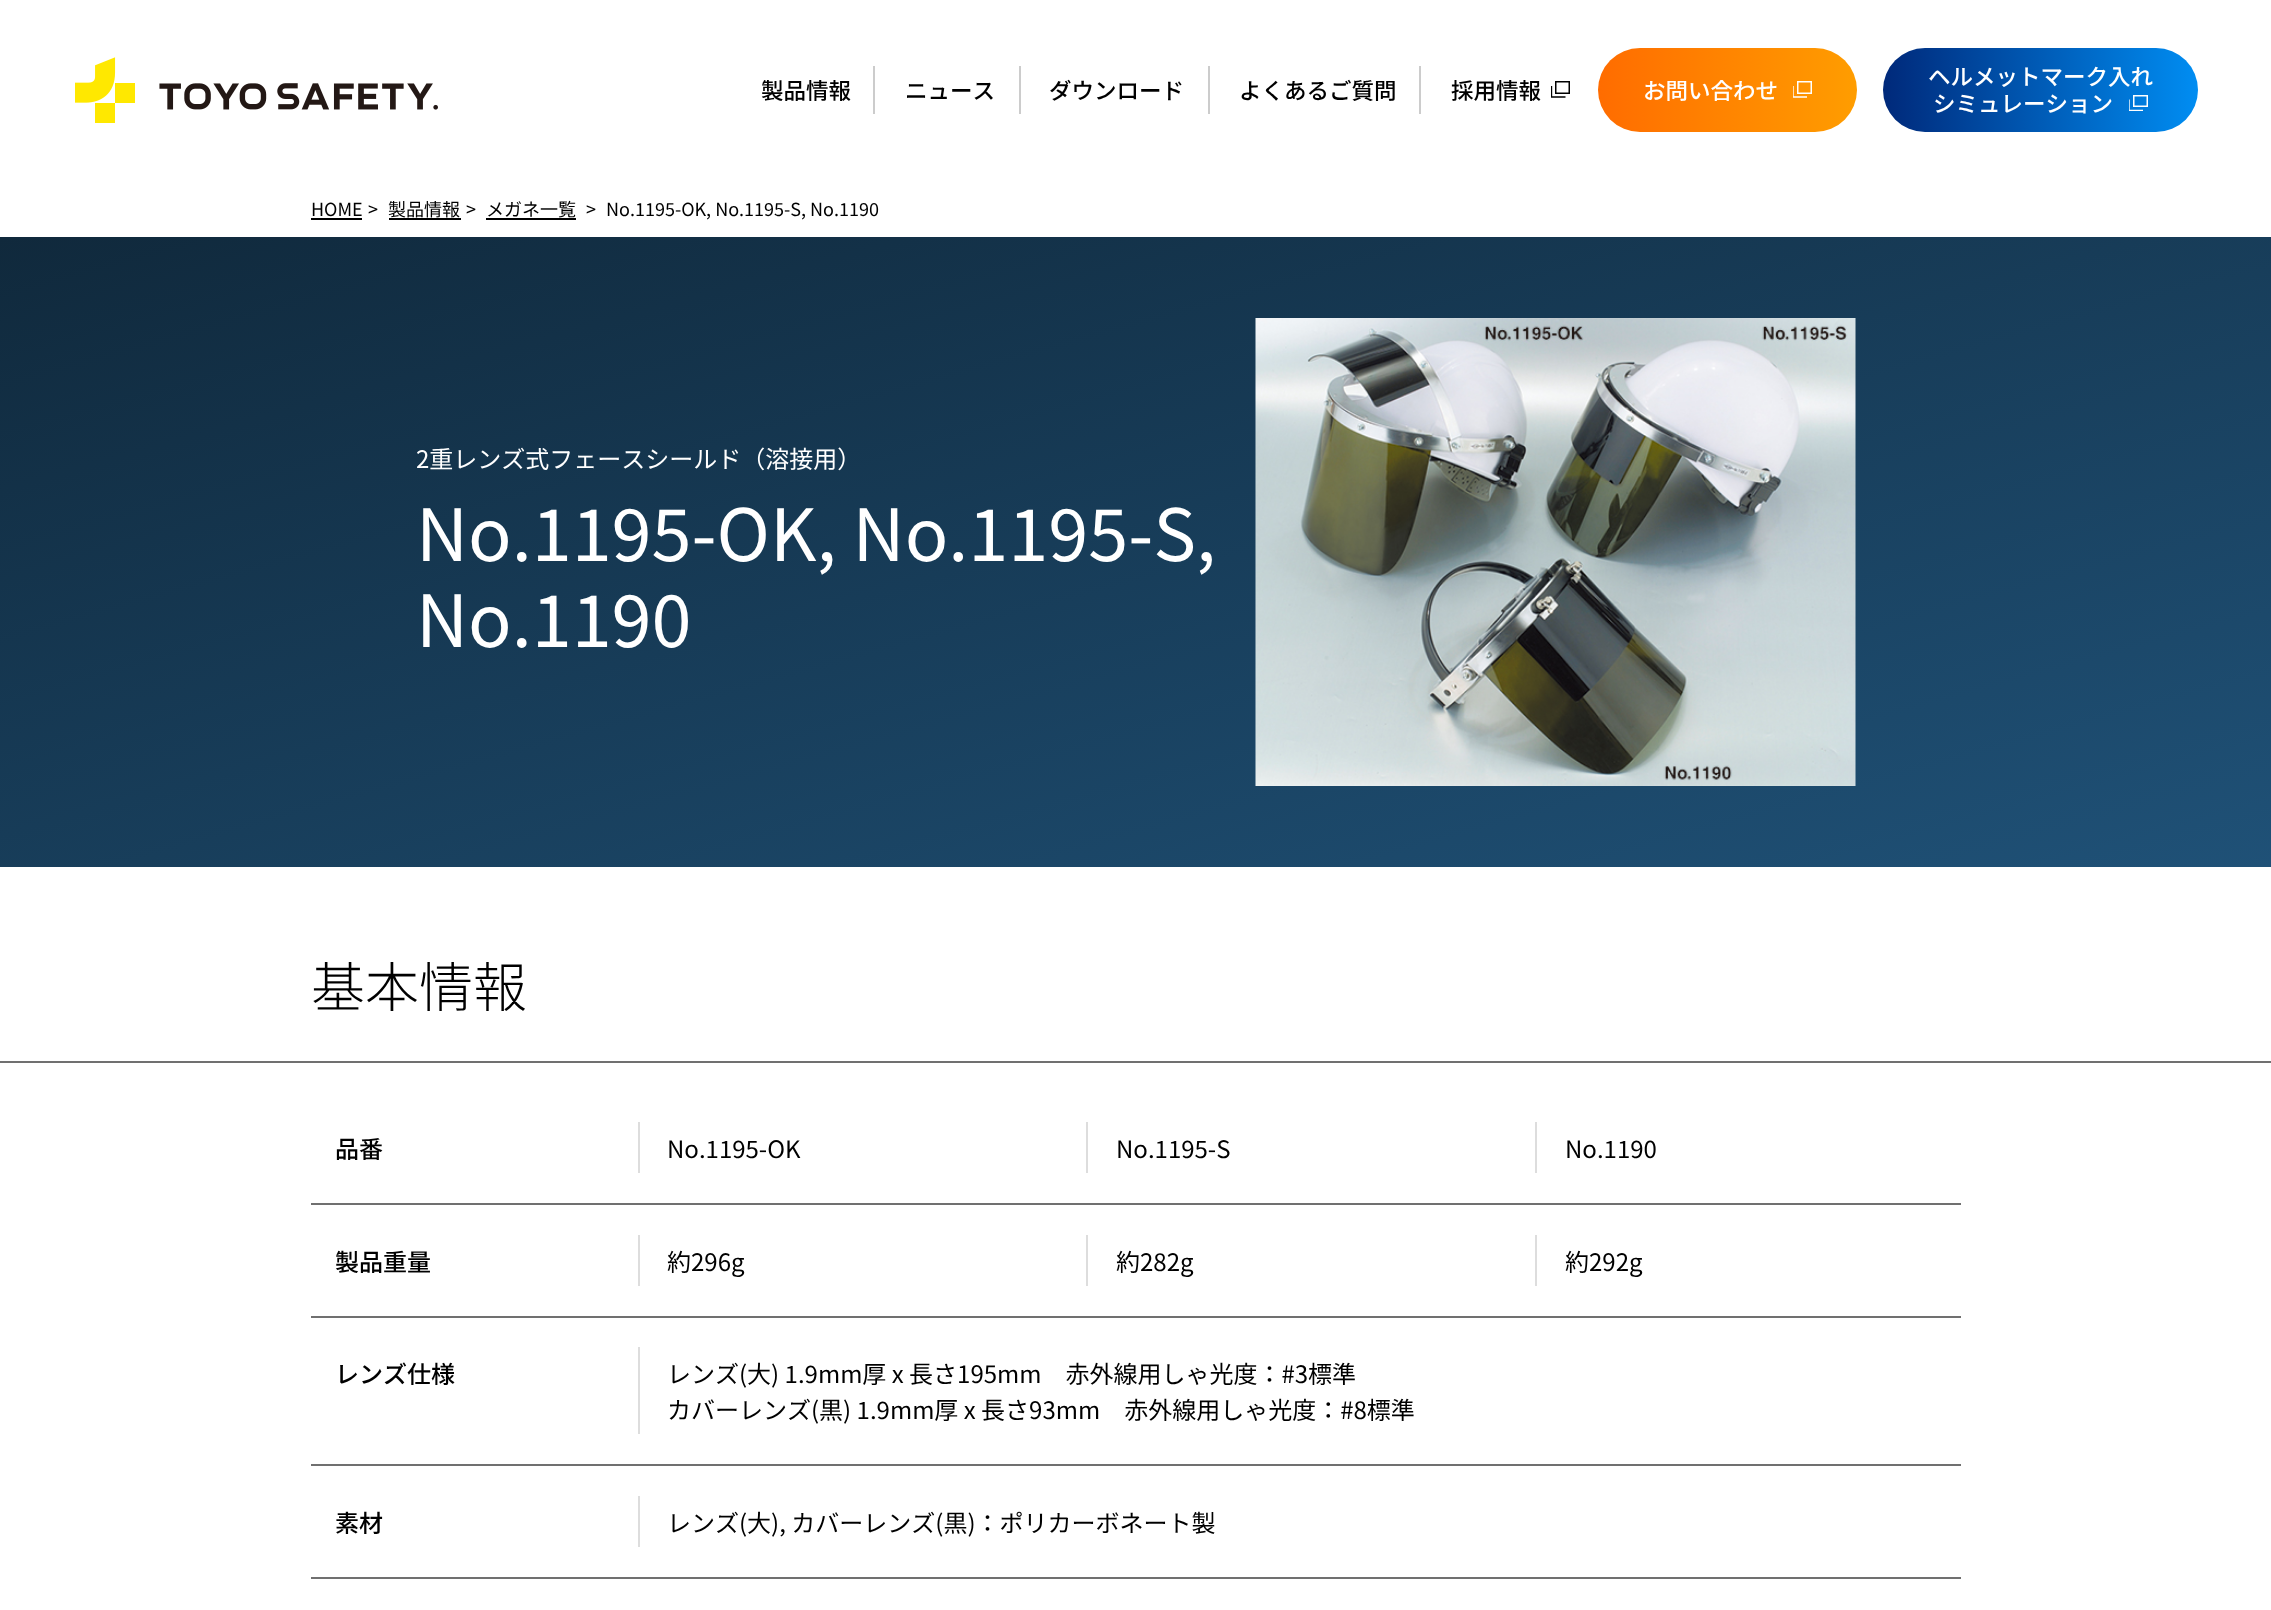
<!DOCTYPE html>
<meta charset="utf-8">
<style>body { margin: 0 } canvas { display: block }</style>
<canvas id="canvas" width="2271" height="1610"></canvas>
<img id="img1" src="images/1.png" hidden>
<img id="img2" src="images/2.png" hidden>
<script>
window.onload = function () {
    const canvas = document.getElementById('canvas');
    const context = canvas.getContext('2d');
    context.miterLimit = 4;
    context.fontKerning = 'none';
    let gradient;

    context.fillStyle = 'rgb(255, 255, 255)';
    context.fillRect(0, 0, 2271, 1610);
    context.drawImage(document.getElementById('img1'), 75, 57, 363, 66);
    context.fillStyle = 'rgb(204, 204, 204)';
    context.fillRect(873, 66, 2, 48);
    context.fillRect(1019, 66, 2, 48);
    context.fillRect(1208, 66, 2, 48);
    context.fillRect(1419, 66, 2, 48);
    context.strokeStyle = 'rgb(0, 0, 0)';
    context.lineWidth = 1.5;
    context.strokeRect(1555.75, 81.75, 13.5, 11.5);
    context.save();
    context.beginPath();
    context.rect(1551, 81, 20, 17);
    context.clip();
    context.beginPath();
    context.moveTo(1551.5, 86);
    context.lineTo(1551.5, 97);
    context.lineTo(1565.5, 97);
    context.lineWidth = 1.4;
    context.stroke();
    context.restore();
    gradient = context.createLinearGradient(1598, 90, 1857, 90);
    gradient.addColorStop(0, 'rgb(255, 108, 0)');
    gradient.addColorStop(1, 'rgb(255, 157, 0)');
    context.fillStyle = gradient;
    context.beginPath();
    context.roundRect(1598, 48, 259, 84, 42);
    context.fill();
    context.strokeStyle = 'rgb(255, 255, 255)';
    context.strokeRect(1797.75, 81.75, 13.5, 11.5);
    context.save();
    context.beginPath();
    context.rect(1793, 81, 19, 17);
    context.clip();
    context.beginPath();
    context.moveTo(1793, 86);
    context.lineTo(1793, 97);
    context.lineTo(1807, 97);
    context.lineWidth = 1.4;
    context.stroke();
    context.restore();
    gradient = context.createLinearGradient(1883, 90, 2198, 90);
    gradient.addColorStop(0, 'rgb(0, 41, 122)');
    gradient.addColorStop(1, 'rgb(0, 141, 242)');
    context.fillStyle = gradient;
    context.beginPath();
    context.roundRect(1883, 48, 315, 84, 42);
    context.fill();
    context.strokeRect(2133.75, 95.75, 13.5, 10.5);
    context.save();
    context.beginPath();
    context.rect(2129, 95, 19, 16);
    context.clip();
    context.beginPath();
    context.moveTo(2129, 99.5);
    context.lineTo(2129, 110.5);
    context.lineTo(2143, 110.5);
    context.lineWidth = 1.4;
    context.stroke();
    context.restore();
    context.fillStyle = 'rgb(0, 0, 0)';
    context.fillRect(311, 218, 51, 2);
    context.fillRect(389, 218, 72, 2);
    context.fillRect(486, 218, 90, 2);
    gradient = context.createLinearGradient(973, -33, 1298, 1137);
    gradient.addColorStop(0, 'rgb(16, 41, 60)');
    gradient.addColorStop(1, 'rgb(31, 81, 119)');
    context.fillStyle = gradient;
    context.fillRect(0, 237, 2271, 630);
    context.drawImage(document.getElementById('img2'), 1255, 318, 601, 468);
    context.fillStyle = 'rgb(112, 112, 112)';
    context.fillRect(0, 1061, 2271, 2);
    context.fillRect(311, 1203, 1650, 2);
    context.fillStyle = 'rgb(221, 221, 221)';
    context.fillRect(638, 1122, 2, 51);
    context.fillRect(1086, 1122, 2, 51);
    context.fillRect(1535, 1122, 2, 51);
    context.fillStyle = 'rgb(112, 112, 112)';
    context.fillRect(311, 1316, 1650, 2);
    context.fillStyle = 'rgb(221, 221, 221)';
    context.fillRect(638, 1235, 2, 51);
    context.fillRect(1086, 1235, 2, 51);
    context.fillRect(1535, 1235, 2, 51);
    context.fillStyle = 'rgb(112, 112, 112)';
    context.fillRect(311, 1464, 1650, 2);
    context.fillStyle = 'rgb(221, 221, 221)';
    context.fillRect(638, 1347, 2, 87);
    context.fillStyle = 'rgb(112, 112, 112)';
    context.fillRect(311, 1577, 1650, 2);
    context.fillStyle = 'rgb(221, 221, 221)';
    context.fillRect(638, 1496, 2, 51);
    context.font = '500 22.5px Noto Sans JP';
    context.fillStyle = 'rgb(0, 0, 0)';
    context.fillText('製品情報', 761, 99);
    context.fillText('ニュース', 905, 99);
    context.fillText('ダウンロード', 1049, 99);
    context.fillText('よくあるご質問', 1239, 99);
    context.fillText('採用情報', 1451, 99);
    context.fillStyle = 'rgb(255, 255, 255)';
    context.fillText('お問い合わせ', 1643, 99);
    context.fillText('ヘルメットマーク入れ', 1928, 85);
    context.fillText('シミュレーション', 1933, 112);
    context.font = '18px Noto Sans JP';
    context.fillStyle = 'rgb(0, 0, 0)';
    context.fillText('HOME', 311, 216);
    context.fillText('>', 368, 216);
    context.fillText('製品情報', 388, 216);
    context.fillText('>', 466, 216);
    context.fillText('メガネ一覧', 486, 216);
    context.fillText('>', 586, 216);
    context.fillText('No.1195-OK, No.1195-S, No.1190', 606, 216);
    context.font = '24px Noto Sans JP';
    context.fillStyle = 'rgb(255, 255, 255)';
    context.fillText('2重レンズ式フェースシールド（溶接用）', 416, 468);
    context.font = '72px Noto Sans JP';
    context.fillText('No.1195-OK, No.1195-S,', 416, 561);
    context.fillText('No.1190', 416, 647);
    context.font = '300 54px Noto Sans JP';
    context.fillStyle = 'rgb(0, 0, 0)';
    context.fillText('基本情報', 311, 1007);
    context.font = '500 24px Noto Sans JP';
    context.fillText('品番', 335, 1158);
    context.font = '24px Noto Sans JP';
    context.fillText('No.1195-OK', 667, 1158);
    context.fillText('No.1195-S', 1116, 1158);
    context.fillText('No.1190', 1565, 1158);
    context.font = '500 24px Noto Sans JP';
    context.fillText('製品重量', 335, 1271);
    context.font = '24px Noto Sans JP';
    context.fillText('約296g', 667, 1271);
    context.fillText('約282g', 1116, 1271);
    context.fillText('約292g', 1565, 1271);
    context.font = '500 24px Noto Sans JP';
    context.fillText('レンズ仕様', 335, 1383);
    context.font = '24px Noto Sans JP';
    context.fillText('レンズ(大) 1.9mm厚 x 長さ195mm　赤外線用しゃ光度：#3標準', 667, 1383);
    context.fillText('カバーレンズ(黒) 1.9mm厚 x 長さ93mm　赤外線用しゃ光度：#8標準', 667, 1419);
    context.font = '500 24px Noto Sans JP';
    context.fillText('素材', 335, 1532);
    context.font = '24px Noto Sans JP';
    context.fillText('レンズ(大), カバーレンズ(黒)：ポリカーボネート製', 667, 1532);
};
</script>
